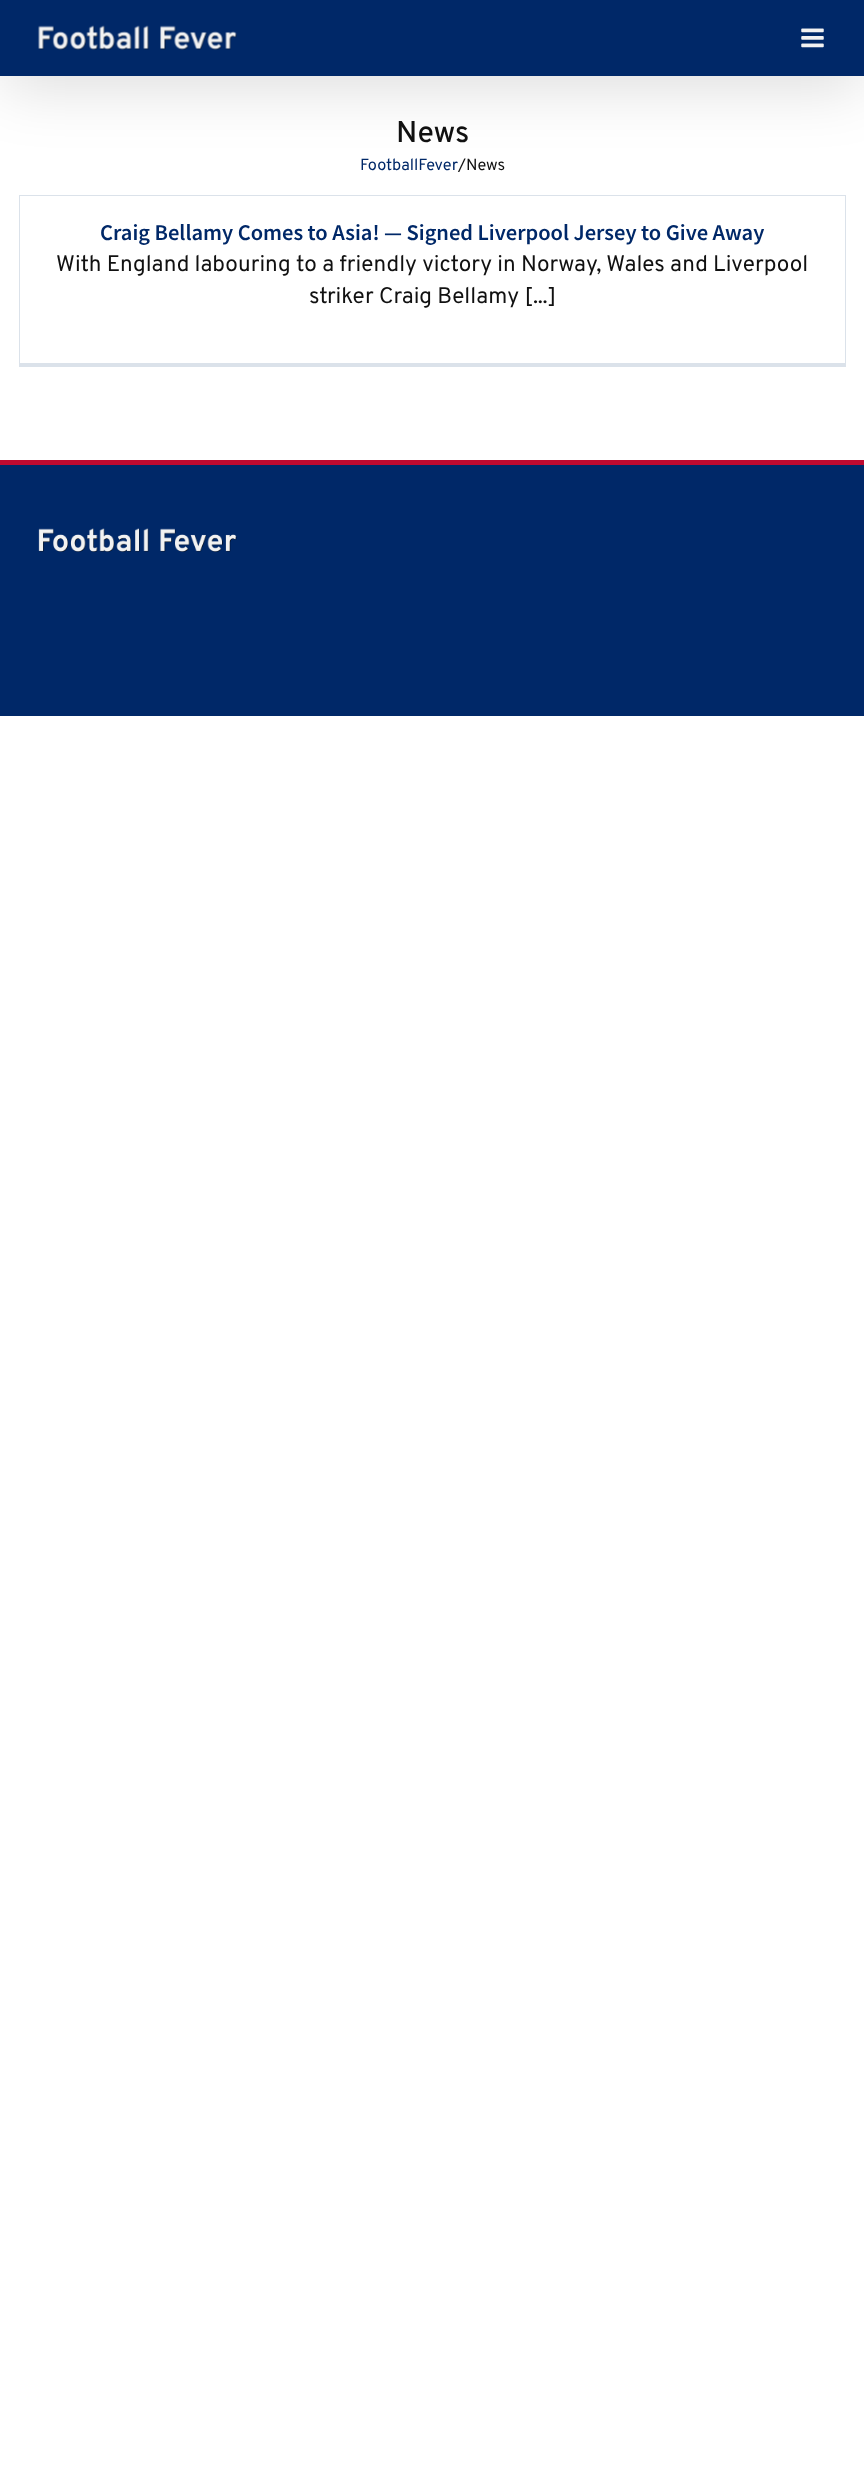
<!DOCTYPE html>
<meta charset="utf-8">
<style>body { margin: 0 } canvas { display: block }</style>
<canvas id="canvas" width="864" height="2484"></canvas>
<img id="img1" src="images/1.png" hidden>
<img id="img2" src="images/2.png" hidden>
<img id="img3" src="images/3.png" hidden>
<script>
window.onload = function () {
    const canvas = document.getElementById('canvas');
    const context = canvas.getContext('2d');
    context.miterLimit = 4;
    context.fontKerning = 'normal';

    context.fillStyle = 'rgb(255, 255, 255)';
    context.fillRect(0, 0, 864, 2484);
    context.fillStyle = 'rgba(0, 0, 0, 0.14)';
    context.filter = 'blur(31px)';
    context.beginPath();
    context.rect(3, 15, 860, 71);
    context.fill();
    context.filter = 'none';
    context.fillStyle = 'rgb(0, 40, 104)';
    context.fillRect(0, 0, 864, 76);
    context.drawImage(document.getElementById('img1'), 38, 25, 199, 25);
    context.drawImage(document.getElementById('img2'), 801, 28, 23, 20);
    context.fillStyle = 'rgb(219, 226, 234)';
    context.fillRect(19, 195, 827, 1);
    context.fillRect(845, 195, 1, 171);
    context.fillRect(19, 363, 827, 4);
    context.fillRect(19, 195, 1, 171);
    context.fillStyle = 'rgb(0, 40, 104)';
    context.fillRect(0, 465, 864, 251);
    context.fillStyle = 'rgb(191, 10, 48)';
    context.fillRect(0, 460, 864, 5);
    context.drawImage(document.getElementById('img3'), 38, 528, 199, 24);
    context.font = '500 30px Overpass';
    context.fillStyle = 'rgb(17, 17, 17)';
    context.fillText('News', 396, 142);
    context.font = '16.25px Overpass';
    context.fillStyle = 'rgb(0, 40, 104)';
    context.fillText('FootballFever', 360, 170);
    context.fillStyle = 'rgb(17, 17, 17)';
    context.fillText('/News', 458, 170);
    context.font = '600 22.5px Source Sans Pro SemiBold';
    context.fillStyle = 'rgb(0, 40, 104)';
    context.fillText('Craig Bellamy Comes to Asia! — Signed Liverpool Jersey to Give Away', 100, 240);
    context.font = '22.5px Overpass';
    context.fillStyle = 'rgb(17, 17, 17)';
    context.fillText('With England labouring to a friendly victory in Norway, Wales and Liverpool', 56, 271);
    context.fillText('striker Craig Bellamy [...]', 309, 303);
};
</script>
